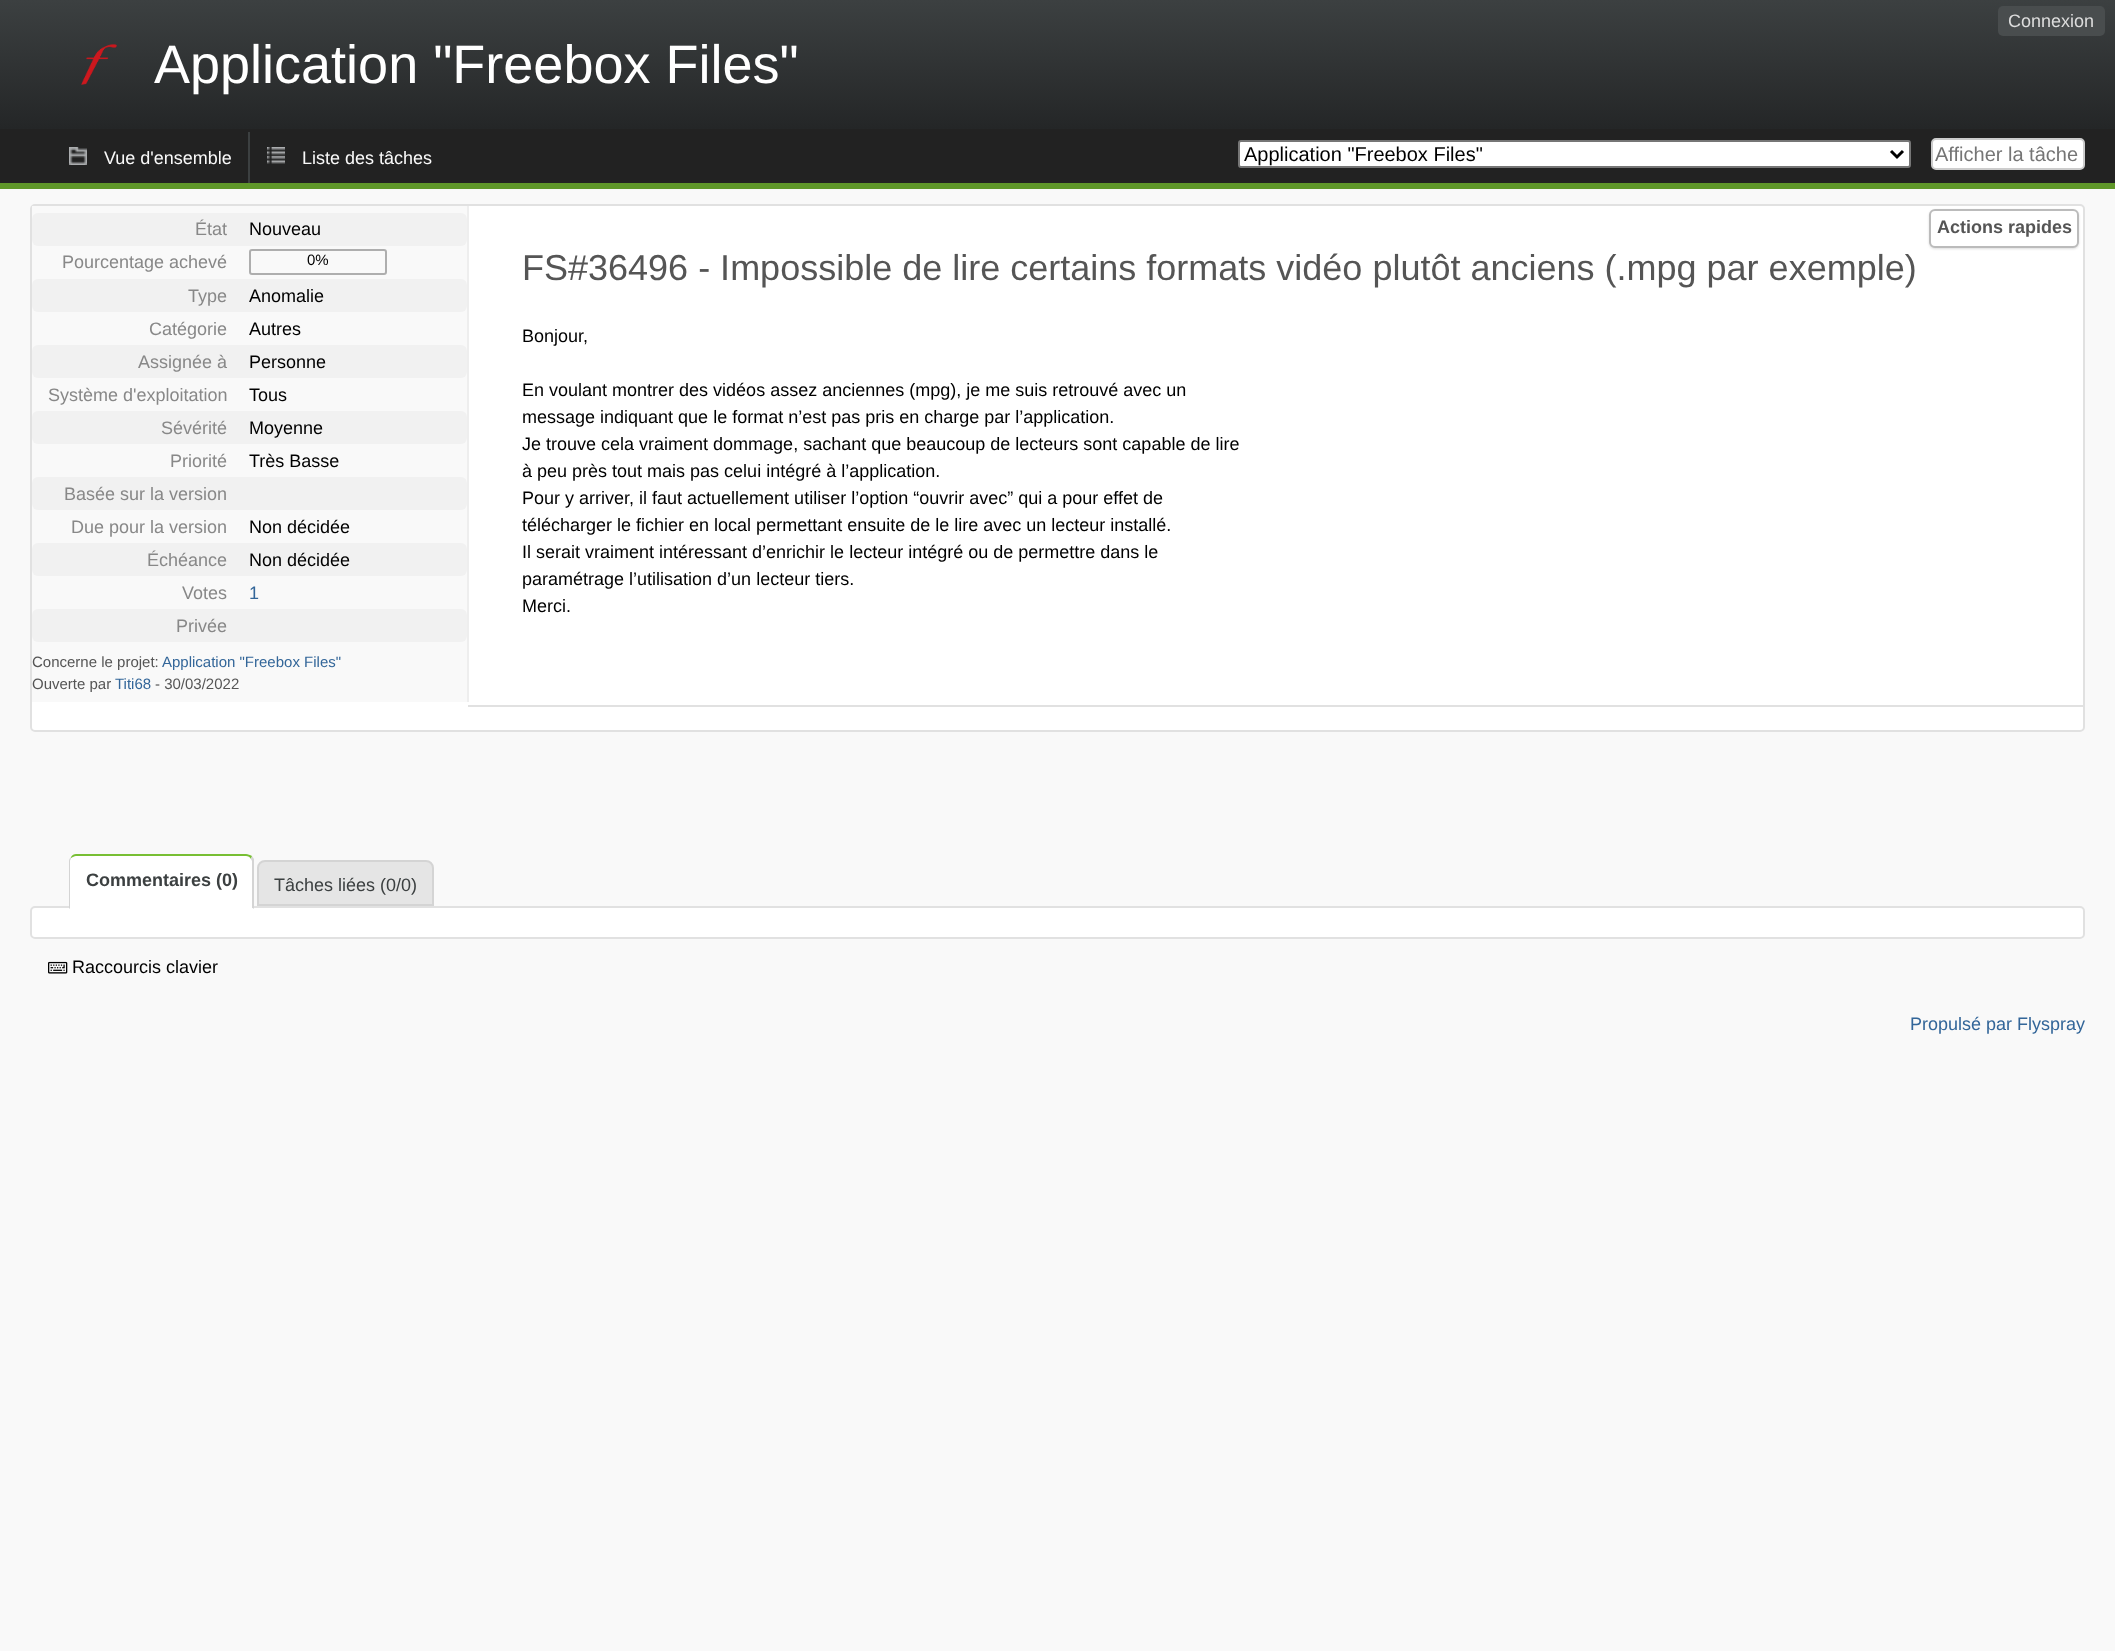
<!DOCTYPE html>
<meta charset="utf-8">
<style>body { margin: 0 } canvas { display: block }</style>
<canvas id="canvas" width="2115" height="1651"></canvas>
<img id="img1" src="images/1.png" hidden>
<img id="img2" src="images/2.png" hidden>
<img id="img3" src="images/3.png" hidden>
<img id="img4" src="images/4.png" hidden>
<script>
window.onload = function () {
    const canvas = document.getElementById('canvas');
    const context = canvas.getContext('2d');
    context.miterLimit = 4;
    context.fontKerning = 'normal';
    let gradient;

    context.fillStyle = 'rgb(249, 249, 249)';
    context.fillRect(0, 0, 2115, 1651);
    gradient = context.createLinearGradient(1058, 0, 1058, 129);
    gradient.addColorStop(0, 'rgb(60, 64, 65)');
    gradient.addColorStop(1, 'rgb(36, 38, 39)');
    context.fillStyle = gradient;
    context.fillRect(0, 0, 2115, 129);
    context.fillStyle = 'rgb(73, 77, 78)';
    context.beginPath();
    context.roundRect(1998, 6, 107, 30, 5);
    context.fill();
    context.drawImage(document.getElementById('img1'), 81, 44, 36, 41);
    context.fillStyle = 'rgb(34, 34, 34)';
    context.fillRect(0, 129, 2115, 54);
    context.fillStyle = 'rgb(95, 151, 41)';
    context.fillRect(0, 183, 2115, 6);
    context.drawImage(document.getElementById('img2'), 69, 147, 18, 18);
    context.drawImage(document.getElementById('img3'), 267, 147, 18, 17);
    context.fillStyle = 'rgb(60, 64, 65)';
    context.fillRect(248, 132, 2, 51);
    context.fillStyle = 'rgb(255, 255, 255)';
    context.beginPath();
    context.roundRect(1239, 141, 671, 26, 2);
    context.fill();
    context.strokeStyle = 'rgb(118, 118, 118)';
    context.lineWidth = 2;
    context.stroke();
    context.beginPath();
    context.moveTo(1891, 151);
    context.lineTo(1897, 157);
    context.lineTo(1903, 151);
    context.strokeStyle = 'rgb(0, 0, 0)';
    context.lineWidth = 3;
    context.stroke();
    context.beginPath();
    context.roundRect(1932, 139, 152, 30, 4);
    context.fill();
    context.strokeStyle = 'rgb(204, 204, 204)';
    context.lineWidth = 2;
    context.stroke();
    context.beginPath();
    context.roundRect(31, 205, 2053, 526, 4);
    context.fill();
    context.strokeStyle = 'rgb(225, 225, 225)';
    context.stroke();
    context.fillStyle = 'rgb(249, 249, 249)';
    context.fillRect(32, 206, 435, 496);
    context.fillStyle = 'rgb(238, 238, 238)';
    context.fillRect(467, 206, 2, 496);
    context.fillStyle = 'rgb(241, 241, 241)';
    context.beginPath();
    context.roundRect(32, 213, 435, 33, 6);
    context.fill();
    context.beginPath();
    context.roundRect(250, 250, 136, 24, 2);
    context.strokeStyle = 'rgb(174, 174, 174)';
    context.stroke();
    context.beginPath();
    context.roundRect(32, 279, 435, 33, 6);
    context.fill();
    context.beginPath();
    context.roundRect(32, 345, 435, 33, 6);
    context.fill();
    context.beginPath();
    context.roundRect(32, 411, 435, 33, 6);
    context.fill();
    context.beginPath();
    context.roundRect(32, 477, 435, 33, 6);
    context.fill();
    context.beginPath();
    context.roundRect(32, 543, 435, 33, 6);
    context.fill();
    context.beginPath();
    context.roundRect(32, 609, 435, 33, 6);
    context.fill();
    context.fillStyle = 'rgb(225, 225, 225)';
    context.fillRect(468, 705, 1616, 2);
    context.fillStyle = 'rgb(221, 221, 221)';
    context.filter = 'blur(1px)';
    context.beginPath();
    context.roundRect(1929, 210, 150, 39, 6);
    context.fill();
    context.filter = 'none';
    context.fillStyle = 'rgb(255, 255, 255)';
    context.beginPath();
    context.roundRect(1930, 210, 148, 37, 5);
    context.fill();
    context.strokeStyle = 'rgb(187, 187, 187)';
    context.stroke();
    context.beginPath();
    context.roundRect(31, 907, 2053, 31, 4);
    context.fill();
    context.strokeStyle = 'rgb(225, 225, 225)';
    context.stroke();
    context.beginPath();
    context.moveTo(76, 856);
    context.lineTo(246, 856);
    context.bezierCurveTo(249, 856, 252, 859, 252, 861);
    context.lineTo(252, 908);
    context.lineTo(70, 908);
    context.lineTo(70, 861);
    context.bezierCurveTo(70, 859, 73, 856, 76, 856);
    context.closePath();
    context.fill();
    context.fillStyle = 'rgb(120, 191, 52)';
    context.beginPath();
    context.moveTo(76, 854);
    context.bezierCurveTo(74, 854, 72, 855, 71, 857);
    context.lineTo(71, 858);
    context.bezierCurveTo(73, 857, 74, 856, 76, 856);
    context.lineTo(246, 856);
    context.bezierCurveTo(248, 856, 250, 857, 251, 859);
    context.lineTo(252, 856);
    context.bezierCurveTo(250, 855, 248, 854, 246, 854);
    context.closePath();
    context.fill();
    context.fillStyle = 'rgb(212, 212, 212)';
    context.beginPath();
    context.moveTo(254, 859);
    context.lineTo(254, 909);
    context.lineTo(252, 908);
    context.lineTo(252, 861);
    context.lineTo(251, 859);
    context.lineTo(252, 856);
    context.closePath();
    context.fill();
    context.fillStyle = 'rgb(255, 255, 255)';
    context.beginPath();
    context.moveTo(254, 909);
    context.lineTo(252, 908);
    context.lineTo(70, 908);
    context.lineTo(69, 909);
    context.closePath();
    context.fill();
    context.fillStyle = 'rgb(212, 212, 212)';
    context.beginPath();
    context.moveTo(69, 909);
    context.lineTo(70, 908);
    context.lineTo(70, 861);
    context.bezierCurveTo(70, 860, 71, 859, 71, 858);
    context.lineTo(71, 857);
    context.bezierCurveTo(70, 858, 69, 859, 69, 861);
    context.closePath();
    context.fill();
    context.fillStyle = 'rgb(229, 229, 229)';
    context.beginPath();
    context.roundRect(258, 861, 175, 44, [7, 7, 0, 0]);
    context.fill();
    context.strokeStyle = 'rgb(212, 212, 212)';
    context.stroke();
    context.drawImage(document.getElementById('img4'), 48, 961, 20, 13);
    context.font = '18px Liberation Sans';
    context.fillStyle = 'rgb(221, 221, 221)';
    context.fillText('Connexion', 2008, 27);
    context.font = '54px Liberation Sans';
    context.fillStyle = 'rgb(255, 255, 255)';
    context.fillText('Application "Freebox Files"', 154, 83);
    context.font = '18px Liberation Sans';
    context.fillStyle = 'rgb(249, 249, 249)';
    context.fillText('Vue d\'ensemble', 104, 164);
    context.fillText('Liste des tâches', 302, 164);
    context.font = '20px Liberation Sans';
    context.fillStyle = 'rgb(0, 0, 0)';
    context.fillText('Application "Freebox Files"', 1244, 161);
    context.fillStyle = 'rgb(117, 117, 117)';
    context.fillText('Afficher la tâche', 1935, 161);
    context.font = '18px Liberation Sans';
    context.fillStyle = 'rgb(136, 136, 136)';
    context.fillText('État', 195, 235);
    context.fillStyle = 'rgb(0, 0, 0)';
    context.fillText('Nouveau', 249, 235);
    context.fillStyle = 'rgb(136, 136, 136)';
    context.fillText('Pourcentage achevé', 62, 268);
    context.font = '15px Liberation Sans';
    context.fillStyle = 'rgb(0, 0, 0)';
    context.fillText('0%', 307, 265);
    context.font = '18px Liberation Sans';
    context.fillStyle = 'rgb(136, 136, 136)';
    context.fillText('Type', 188, 302);
    context.fillStyle = 'rgb(0, 0, 0)';
    context.fillText('Anomalie', 249, 302);
    context.fillStyle = 'rgb(136, 136, 136)';
    context.fillText('Catégorie', 149, 335);
    context.fillStyle = 'rgb(0, 0, 0)';
    context.fillText('Autres', 249, 335);
    context.fillStyle = 'rgb(136, 136, 136)';
    context.fillText('Assignée à', 138, 368);
    context.fillStyle = 'rgb(0, 0, 0)';
    context.fillText('Personne', 249, 368);
    context.fillStyle = 'rgb(136, 136, 136)';
    context.fillText('Système d\'exploitation', 48, 401);
    context.fillStyle = 'rgb(0, 0, 0)';
    context.fillText('Tous', 249, 401);
    context.fillStyle = 'rgb(136, 136, 136)';
    context.fillText('Sévérité', 161, 434);
    context.fillStyle = 'rgb(0, 0, 0)';
    context.fillText('Moyenne', 249, 434);
    context.fillStyle = 'rgb(136, 136, 136)';
    context.fillText('Priorité', 170, 467);
    context.fillStyle = 'rgb(0, 0, 0)';
    context.fillText('Très Basse', 249, 467);
    context.fillStyle = 'rgb(136, 136, 136)';
    context.fillText('Basée sur la version', 64, 500);
    context.fillText('Due pour la version', 71, 533);
    context.fillStyle = 'rgb(0, 0, 0)';
    context.fillText('Non décidée', 249, 533);
    context.fillStyle = 'rgb(136, 136, 136)';
    context.fillText('Échéance', 147, 566);
    context.fillStyle = 'rgb(0, 0, 0)';
    context.fillText('Non décidée', 249, 566);
    context.fillStyle = 'rgb(136, 136, 136)';
    context.fillText('Votes', 182, 599);
    context.fillStyle = 'rgb(51, 102, 153)';
    context.fillText('1', 249, 599);
    context.fillStyle = 'rgb(136, 136, 136)';
    context.fillText('Privée', 176, 632);
    context.font = '15px Liberation Sans';
    context.fillStyle = 'rgb(85, 85, 85)';
    context.fillText('Concerne le projet:', 32, 667);
    context.fillStyle = 'rgb(51, 102, 153)';
    context.fillText('Application "Freebox Files"', 162, 667);
    context.fillStyle = 'rgb(85, 85, 85)';
    context.fillText('Ouverte par', 32, 689);
    context.fillStyle = 'rgb(51, 102, 153)';
    context.fillText('Titi68', 115, 689);
    context.fillStyle = 'rgb(85, 85, 85)';
    context.fillText('- 30/03/2022', 155, 689);
    context.font = '36px Liberation Sans';
    context.fillText('FS#36496 - Impossible de lire certains formats vidéo plutôt anciens (.mpg par exemple)', 522, 280);
    context.font = '18px Liberation Sans';
    context.fillStyle = 'rgb(0, 0, 0)';
    context.fillText('Bonjour,', 522, 342);
    context.fillText('En voulant montrer des vidéos assez anciennes (mpg), je me suis retrouvé avec un', 522, 396);
    context.fillText('message indiquant que le format n’est pas pris en charge par l’application.', 522, 423);
    context.fillText('Je trouve cela vraiment dommage, sachant que beaucoup de lecteurs sont capable de lire', 522, 450);
    context.fillText('à peu près tout mais pas celui intégré à l’application.', 522, 477);
    context.fillText('Pour y arriver, il faut actuellement utiliser l’option “ouvrir avec” qui a pour effet de', 522, 504);
    context.fillText('télécharger le fichier en local permettant ensuite de le lire avec un lecteur installé.', 522, 531);
    context.fillText('Il serait vraiment intéressant d’enrichir le lecteur intégré ou de permettre dans le', 522, 558);
    context.fillText('paramétrage l’utilisation d’un lecteur tiers.', 522, 585);
    context.fillText('Merci.', 522, 612);
    context.font = 'bold 18px Liberation Sans';
    context.fillStyle = 'rgb(85, 85, 85)';
    context.fillText('Actions rapides', 1937, 233);
    context.fillStyle = 'rgb(60, 64, 65)';
    context.fillText('Commentaires (0)', 86, 886);
    context.font = '18px Liberation Sans';
    context.fillText('Tâches liées (0/0)', 274, 891);
    context.fillStyle = 'rgb(0, 0, 0)';
    context.fillText('Raccourcis clavier', 72, 973);
    context.fillStyle = 'rgb(51, 102, 153)';
    context.fillText('Propulsé par Flyspray', 1910, 1030);
};
</script>
